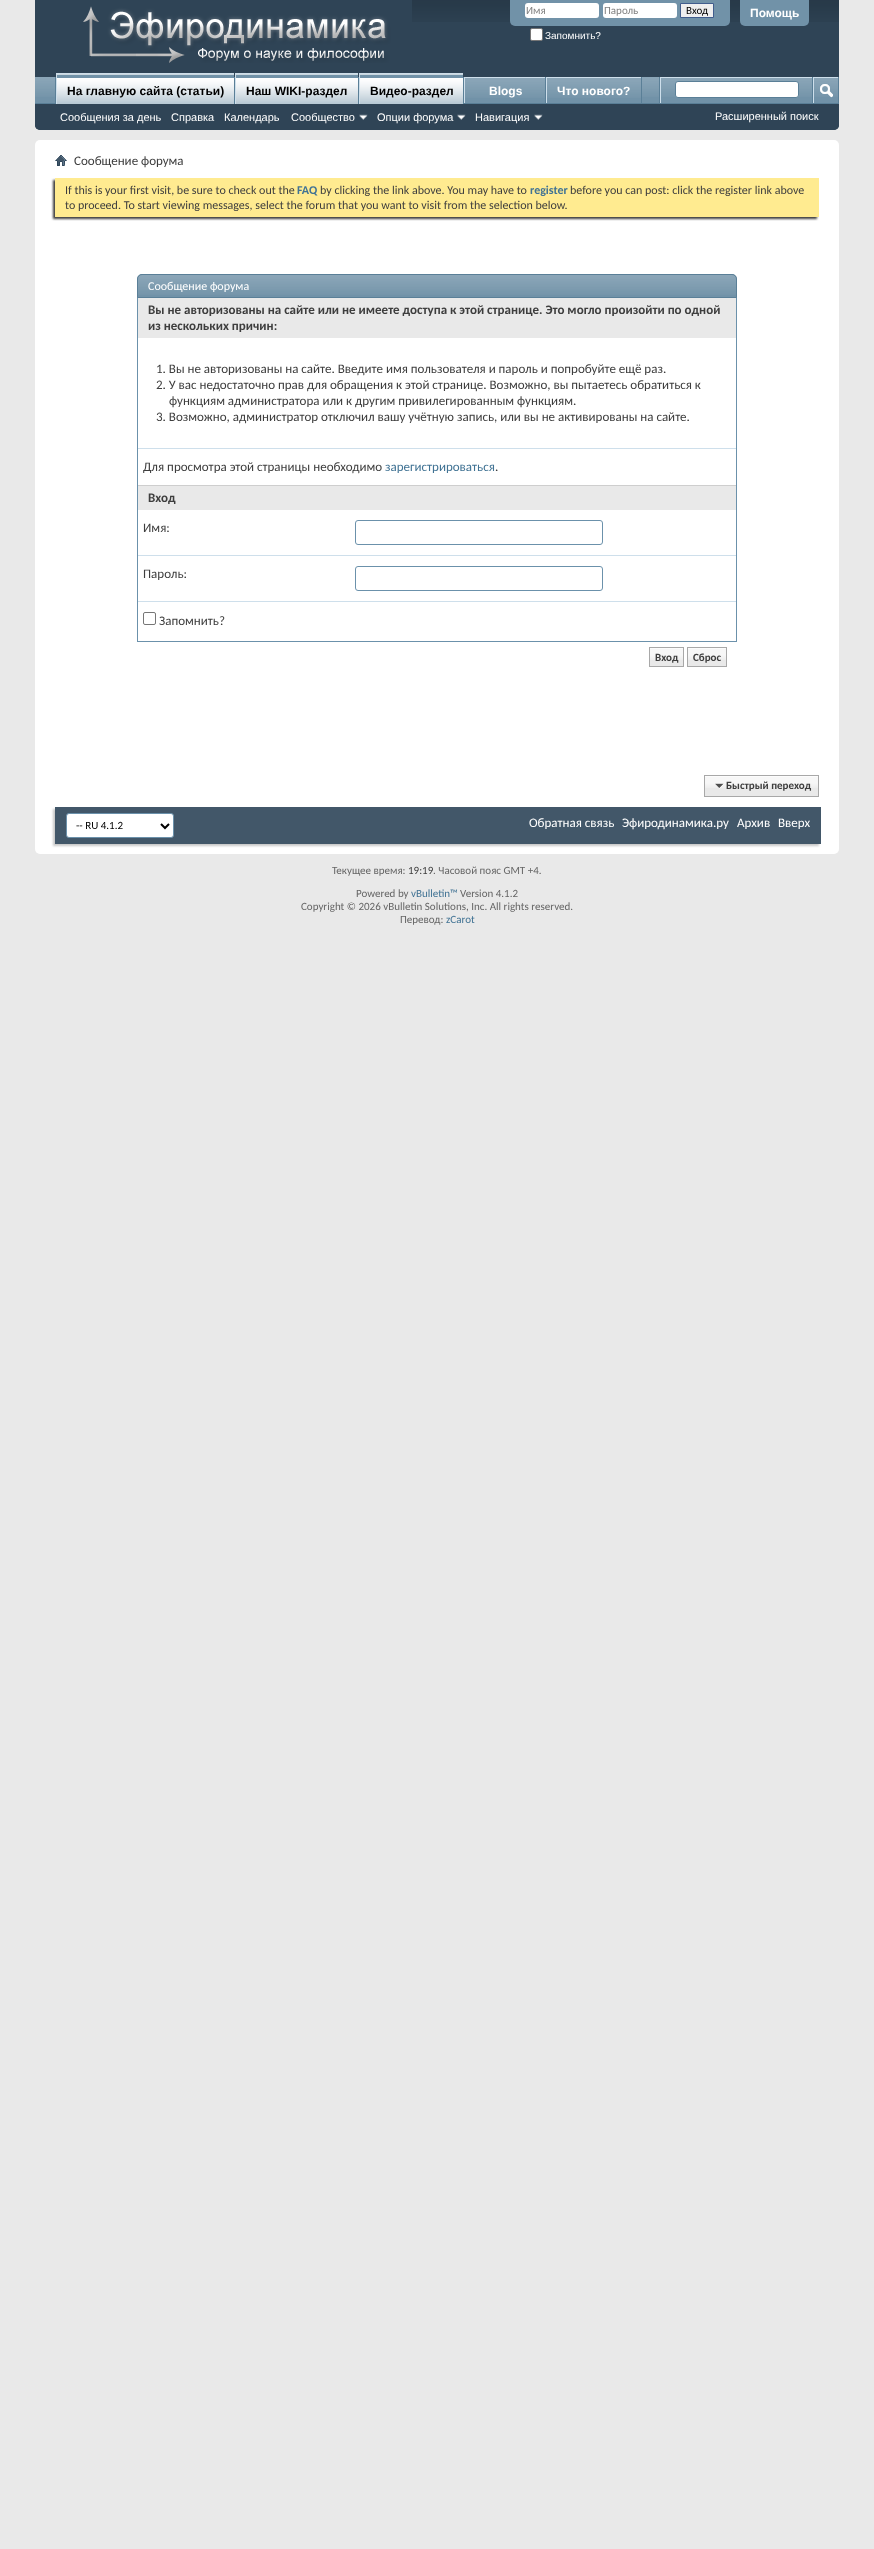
<!DOCTYPE html>
<meta charset="utf-8">
<style>body { margin: 0 } canvas { display: block }</style>
<canvas id="canvas" width="874" height="2549"></canvas>
<img id="img1" src="images/1.png" hidden>
<img id="img2" src="images/2.png" hidden>
<img id="img3" src="images/3.png" hidden>
<img id="img4" src="images/4.png" hidden>
<img id="img5" src="images/5.png" hidden>
<img id="img6" src="images/6.png" hidden>
<img id="img7" src="images/7.png" hidden>
<img id="img8" src="images/8.png" hidden>
<img id="img9" src="images/9.png" hidden>
<img id="img10" src="images/10.png" hidden>
<img id="img11" src="images/11.png" hidden>
<img id="img12" src="images/12.png" hidden>
<img id="img13" src="images/13.png" hidden>
<img id="img14" src="images/14.png" hidden>
<img id="img15" src="images/15.png" hidden>
<img id="img16" src="images/16.png" hidden>
<script>
window.onload = function () {
    const canvas = document.getElementById('canvas');
    const context = canvas.getContext('2d');
    context.miterLimit = 4;
    context.fontKerning = 'normal';

    context.fillStyle = 'rgb(233, 233, 233)';
    context.fillRect(0, 0, 874, 2549);
    context.fillStyle = 'rgb(47, 68, 86)';
    context.beginPath();
    context.roundRect(35, 0, 804, 130, [0, 0, 5, 5]);
    context.fill();
    context.drawImage(document.getElementById('img1'), 412, 0, 427, 22);
    context.drawImage(document.getElementById('img2'), 35, 0, 377, 63);
    context.fillStyle = 'rgb(113, 146, 168)';
    context.beginPath();
    context.roundRect(510, 0, 220, 26, [0, 0, 5, 5]);
    context.fill();
    context.fillStyle = 'rgb(255, 255, 255)';
    context.beginPath();
    context.roundRect(525, 3, 74, 15, 3);
    context.fill();
    context.beginPath();
    context.roundRect(603, 3, 74, 15, 3);
    context.fill();
    context.fillStyle = 'rgb(239, 239, 239)';
    context.beginPath();
    context.rect(680.5, 3.5, 33, 14);
    context.fill();
    context.strokeStyle = 'rgb(65, 93, 141)';
    context.stroke();
    context.fillStyle = 'rgb(255, 255, 255)';
    context.beginPath();
    context.roundRect(530.5, 28.5, 12, 12, 1.5);
    context.fill();
    context.strokeStyle = 'rgb(118, 118, 118)';
    context.stroke();
    context.fillStyle = 'rgb(113, 146, 168)';
    context.beginPath();
    context.roundRect(740, 0, 69, 26, [0, 0, 5, 5]);
    context.fill();
    context.fillStyle = 'rgb(47, 68, 86)';
    context.beginPath();
    context.roundRect(35, 77, 804, 53, [0, 0, 5, 5]);
    context.fill();
    context.fillStyle = 'rgb(113, 146, 168)';
    context.fillRect(35, 77, 803, 26);
    context.drawImage(document.getElementById('img3'), 35, 77, 803, 20);
    context.fillStyle = 'rgb(90, 127, 151)';
    context.fillRect(463, 77, 1, 26);
    context.fillRect(545, 77, 1, 27);
    context.fillStyle = 'rgb(206, 223, 235)';
    context.fillRect(464, 77, 81, 1);
    context.fillRect(464, 77, 1, 27);
    context.fillStyle = 'rgb(90, 127, 151)';
    context.fillRect(641, 77, 1, 27);
    context.fillStyle = 'rgb(206, 223, 235)';
    context.fillRect(546, 77, 95, 1);
    context.fillRect(546, 77, 1, 27);
    context.fillStyle = 'rgb(90, 127, 151)';
    context.fillRect(35, 103, 804, 1);
    context.fillStyle = 'rgb(113, 146, 168)';
    context.fillRect(360, 74, 103, 30);
    context.drawImage(document.getElementById('img4'), 360, 74, 103, 30);
    context.fillStyle = 'rgb(206, 223, 235)';
    context.fillRect(359, 73, 104, 1);
    context.fillRect(359, 73, 1, 31);
    context.drawImage(document.getElementById('img5'), 359, 114, 9, 6);
    context.drawImage(document.getElementById('img5'), 457, 114, 9, 6);
    context.drawImage(document.getElementById('img5'), 534, 114, 9, 6);
    context.fillStyle = 'rgb(90, 127, 151)';
    context.fillRect(234, 77, 1, 26);
    context.fillRect(55, 77, 1, 26);
    context.fillStyle = 'rgb(113, 146, 168)';
    context.fillRect(57, 74, 177, 30);
    context.drawImage(document.getElementById('img6'), 57, 74, 177, 30);
    context.fillStyle = 'rgb(206, 223, 235)';
    context.fillRect(56, 73, 178, 1);
    context.fillRect(56, 73, 1, 31);
    context.fillStyle = 'rgb(90, 127, 151)';
    context.fillRect(358, 77, 1, 26);
    context.fillStyle = 'rgb(113, 146, 168)';
    context.fillRect(236, 74, 122, 30);
    context.drawImage(document.getElementById('img7'), 236, 74, 122, 30);
    context.fillStyle = 'rgb(206, 223, 235)';
    context.fillRect(235, 73, 123, 1);
    context.fillRect(235, 73, 1, 31);
    context.fillStyle = 'rgb(113, 146, 168)';
    context.fillRect(465, 78, 80, 19);
    context.drawImage(document.getElementById('img8'), 465, 78, 80, 20);
    context.fillRect(547, 78, 94, 19);
    context.drawImage(document.getElementById('img9'), 547, 78, 94, 20);
    context.fillStyle = 'rgb(90, 127, 151)';
    context.fillRect(659, 77, 1, 26);
    context.fillStyle = 'rgb(206, 223, 235)';
    context.fillRect(660, 77, 152, 1);
    context.fillRect(660, 77, 1, 26);
    context.fillStyle = 'rgb(255, 255, 255)';
    context.beginPath();
    context.roundRect(675.5, 81.5, 123, 16, 2.5);
    context.fill();
    context.strokeStyle = 'rgb(90, 127, 151)';
    context.stroke();
    context.fillStyle = 'rgb(90, 127, 151)';
    context.fillRect(838, 77, 1, 26);
    context.fillRect(812, 77, 1, 26);
    context.fillStyle = 'rgb(206, 223, 235)';
    context.fillRect(813, 77, 25, 1);
    context.fillRect(813, 77, 1, 26);
    context.drawImage(document.getElementById('img10'), 820, 84, 13, 14);
    context.fillStyle = 'rgb(255, 255, 255)';
    context.beginPath();
    context.roundRect(35, 140, 804, 714, 5);
    context.fill();
    context.drawImage(document.getElementById('img11'), 55, 155, 12, 11);
    context.fillStyle = 'rgb(62, 62, 62)';
    context.filter = 'blur(1px)';
    context.beginPath();
    context.rect(53, 180, 764, 39);
    context.fill();
    context.filter = 'none';
    context.fillStyle = 'rgb(255, 235, 144)';
    context.fillRect(55, 178, 764, 39);
    context.fillStyle = 'rgb(113, 146, 168)';
    context.beginPath();
    context.roundRect(137, 274, 600, 24, [5, 5, 0, 0]);
    context.fill();
    context.drawImage(document.getElementById('img12'), 137, 275, 600, 20);
    context.beginPath();
    context.roundRect(137.5, 274.5, 599, 23, [4.5, 4.5, 0, 0]);
    context.stroke();
    context.fillStyle = 'rgb(107, 145, 171)';
    context.fillRect(736, 298, 1, 344);
    context.fillRect(137, 641, 600, 1);
    context.fillRect(137, 298, 1, 344);
    context.fillStyle = 'rgb(233, 233, 233)';
    context.fillRect(138, 298, 598, 40);
    context.fillStyle = 'rgb(206, 223, 235)';
    context.fillRect(138, 448, 598, 1);
    context.fillStyle = 'rgb(233, 233, 233)';
    context.fillRect(138, 486, 598, 24);
    context.fillStyle = 'rgb(206, 206, 206)';
    context.fillRect(138, 485, 598, 1);
    context.beginPath();
    context.roundRect(355.5, 520.5, 247, 24, 2.5);
    context.strokeStyle = 'rgb(107, 145, 171)';
    context.stroke();
    context.fillStyle = 'rgb(206, 223, 235)';
    context.fillRect(138, 555, 598, 1);
    context.beginPath();
    context.roundRect(355.5, 566.5, 247, 24, 2.5);
    context.stroke();
    context.fillRect(138, 601, 598, 1);
    context.beginPath();
    context.roundRect(143.5, 612.5, 12, 12, 1.5);
    context.strokeStyle = 'rgb(118, 118, 118)';
    context.stroke();
    context.fillStyle = 'rgb(233, 233, 233)';
    context.fillRect(650, 648, 33, 18);
    context.drawImage(document.getElementById('img13'), 650, 648, 33, 12);
    context.strokeStyle = 'rgb(168, 168, 168)';
    context.strokeRect(649.5, 647.5, 34, 19);
    context.fillRect(688, 648, 38, 18);
    context.drawImage(document.getElementById('img14'), 688, 648, 38, 12);
    context.strokeRect(687.5, 647.5, 39, 19);
    context.fillRect(705, 776, 113, 20);
    context.drawImage(document.getElementById('img15'), 705, 776, 113, 12);
    context.strokeRect(704.5, 775.5, 114, 21);
    context.drawImage(document.getElementById('img16'), 715, 783, 9, 6);
    context.fillStyle = 'rgb(200, 200, 200)';
    context.filter = 'blur(1px)';
    context.beginPath();
    context.rect(53, 809, 766, 37);
    context.fill();
    context.filter = 'none';
    context.fillStyle = 'rgb(66, 87, 105)';
    context.fillRect(55, 807, 766, 37);
    context.fillStyle = 'rgb(255, 255, 255)';
    context.beginPath();
    context.roundRect(66.5, 813.5, 107, 24, 2.5);
    context.fill();
    context.strokeStyle = 'rgb(107, 145, 171)';
    context.stroke();
    context.beginPath();
    context.moveTo(161, 824);
    context.lineTo(165, 828);
    context.lineTo(169, 824);
    context.strokeStyle = 'rgb(0, 0, 0)';
    context.lineWidth = 2;
    context.stroke();
    context.font = '11px Carlito';
    context.fillStyle = 'rgb(130, 130, 130)';
    context.fillText('Имя', 526, 14);
    context.fillText('Пароль', 604, 14);
    context.fillStyle = 'rgb(0, 0, 0)';
    context.fillText('Вход', 686, 14);
    context.font = '10px Liberation Sans';
    context.fillStyle = 'rgb(255, 255, 255)';
    context.fillText('Запомнить?', 545, 39);
    context.font = 'bold 12px Liberation Sans';
    context.fillText('Помощь', 750, 17);
    context.fillStyle = 'rgb(0, 0, 0)';
    context.fillText('Видео-раздел', 370, 95);
    context.font = '11px Liberation Sans';
    context.fillStyle = 'rgb(255, 255, 255)';
    context.fillText('Сообщения за день', 60, 121);
    context.fillText('Справка', 171, 121);
    context.fillText('Календарь', 224, 121);
    context.fillText('Сообщество', 291, 121);
    context.fillText('Опции форума', 377, 121);
    context.fillText('Навигация', 475, 121);
    context.font = 'bold 12px Liberation Sans';
    context.fillStyle = 'rgb(0, 0, 0)';
    context.fillText('На главную сайта (статьи)', 67, 95);
    context.fillText('Наш WIKI-раздел', 246, 95);
    context.fillStyle = 'rgb(255, 255, 255)';
    context.fillText('Blogs', 489, 95);
    context.fillText('Что нового?', 557, 95);
    context.font = '11px Liberation Sans';
    context.fillText('Расширенный поиск', 715, 120);
    context.font = '13px Carlito';
    context.fillStyle = 'rgb(62, 62, 62)';
    context.fillText('Сообщение форума', 74, 165);
    context.font = '12px Carlito';
    context.fillText('If this is your first visit, be sure to check out the', 65, 194);
    context.font = 'bold 12px Carlito';
    context.fillStyle = 'rgb(65, 115, 148)';
    context.fillText('FAQ', 297, 194);
    context.font = '12px Carlito';
    context.fillStyle = 'rgb(62, 62, 62)';
    context.fillText('by clicking the link above. You may have to', 320, 194);
    context.font = 'bold 12px Carlito';
    context.fillStyle = 'rgb(65, 115, 148)';
    context.fillText('register', 530, 194);
    context.font = '12px Carlito';
    context.fillStyle = 'rgb(62, 62, 62)';
    context.fillText('before you can post: click the register link above', 570, 194);
    context.fillText('to proceed. To start viewing messages, select the forum that you want to visit from the selection below.', 65, 209);
    context.fillStyle = 'rgb(255, 255, 255)';
    context.fillText('Сообщение форума', 148, 290);
    context.font = 'bold 13px Carlito';
    context.fillStyle = 'rgb(62, 62, 62)';
    context.fillText('Вы не авторизованы на сайте или не имеете доступа к этой странице. Это могло произойти по одной', 148, 314);
    context.fillText('из нескольких причин:', 148, 330);
    context.font = '13px Carlito';
    context.fillText('1. Вы не авторизованы на сайте. Введите имя пользователя и пароль и попробуйте ещё раз.', 156, 373);
    context.fillText('2. У вас недостаточно прав для обращения к этой странице. Возможно, вы пытаетесь обратиться к', 156, 389);
    context.fillText('функциям администратора или к другим привилегированным функциям.', 169, 405);
    context.fillText('3. Возможно, администратор отключил вашу учётную запись, или вы не активированы на сайте.', 156, 421);
    context.fillText('Для просмотра этой страницы необходимо', 143, 471);
    context.fillStyle = 'rgb(65, 115, 148)';
    context.fillText('зарегистрироваться', 385, 471);
    context.fillStyle = 'rgb(62, 62, 62)';
    context.fillText('.', 495, 471);
    context.font = 'bold 13px Carlito';
    context.fillText('Вход', 148, 502);
    context.font = '13px Carlito';
    context.fillText('Имя:', 143, 532);
    context.fillText('Пароль:', 143, 578);
    context.fillText('Запомнить?', 159, 625);
    context.font = 'bold 11px Carlito';
    context.fillText('Вход', 655, 661);
    context.fillText('Сброс', 693, 661);
    context.fillText('Быстрый переход', 726, 789);
    context.font = '11px Carlito';
    context.fillStyle = 'rgb(0, 0, 0)';
    context.fillText('-- RU 4.1.2', 76, 829);
    context.font = '13px Carlito';
    context.fillStyle = 'rgb(255, 255, 255)';
    context.fillText('Обратная связь', 529, 827);
    context.fillText('Эфиродинамика.ру', 622, 827);
    context.fillText('Архив', 737, 827);
    context.fillText('Вверх', 778, 827);
    context.font = '11px Carlito';
    context.fillStyle = 'rgb(102, 102, 102)';
    context.fillText('Текущее время:', 332, 874);
    context.fillStyle = 'rgb(62, 62, 62)';
    context.fillText('19:19', 408, 874);
    context.fillStyle = 'rgb(102, 102, 102)';
    context.fillText('. Часовой пояс GMT +4.', 433, 874);
    context.fillText('Powered by', 356, 897);
    context.fillStyle = 'rgb(65, 115, 148)';
    context.fillText('vBulletin™', 411, 897);
    context.fillStyle = 'rgb(102, 102, 102)';
    context.fillText('Version 4.1.2', 460, 897);
    context.fillText('Copyright © 2026 vBulletin Solutions, Inc. All rights reserved.', 301, 910);
    context.fillText('Перевод:', 400, 923);
    context.fillStyle = 'rgb(65, 115, 148)';
    context.fillText('zCarot', 446, 923);
};
</script>
